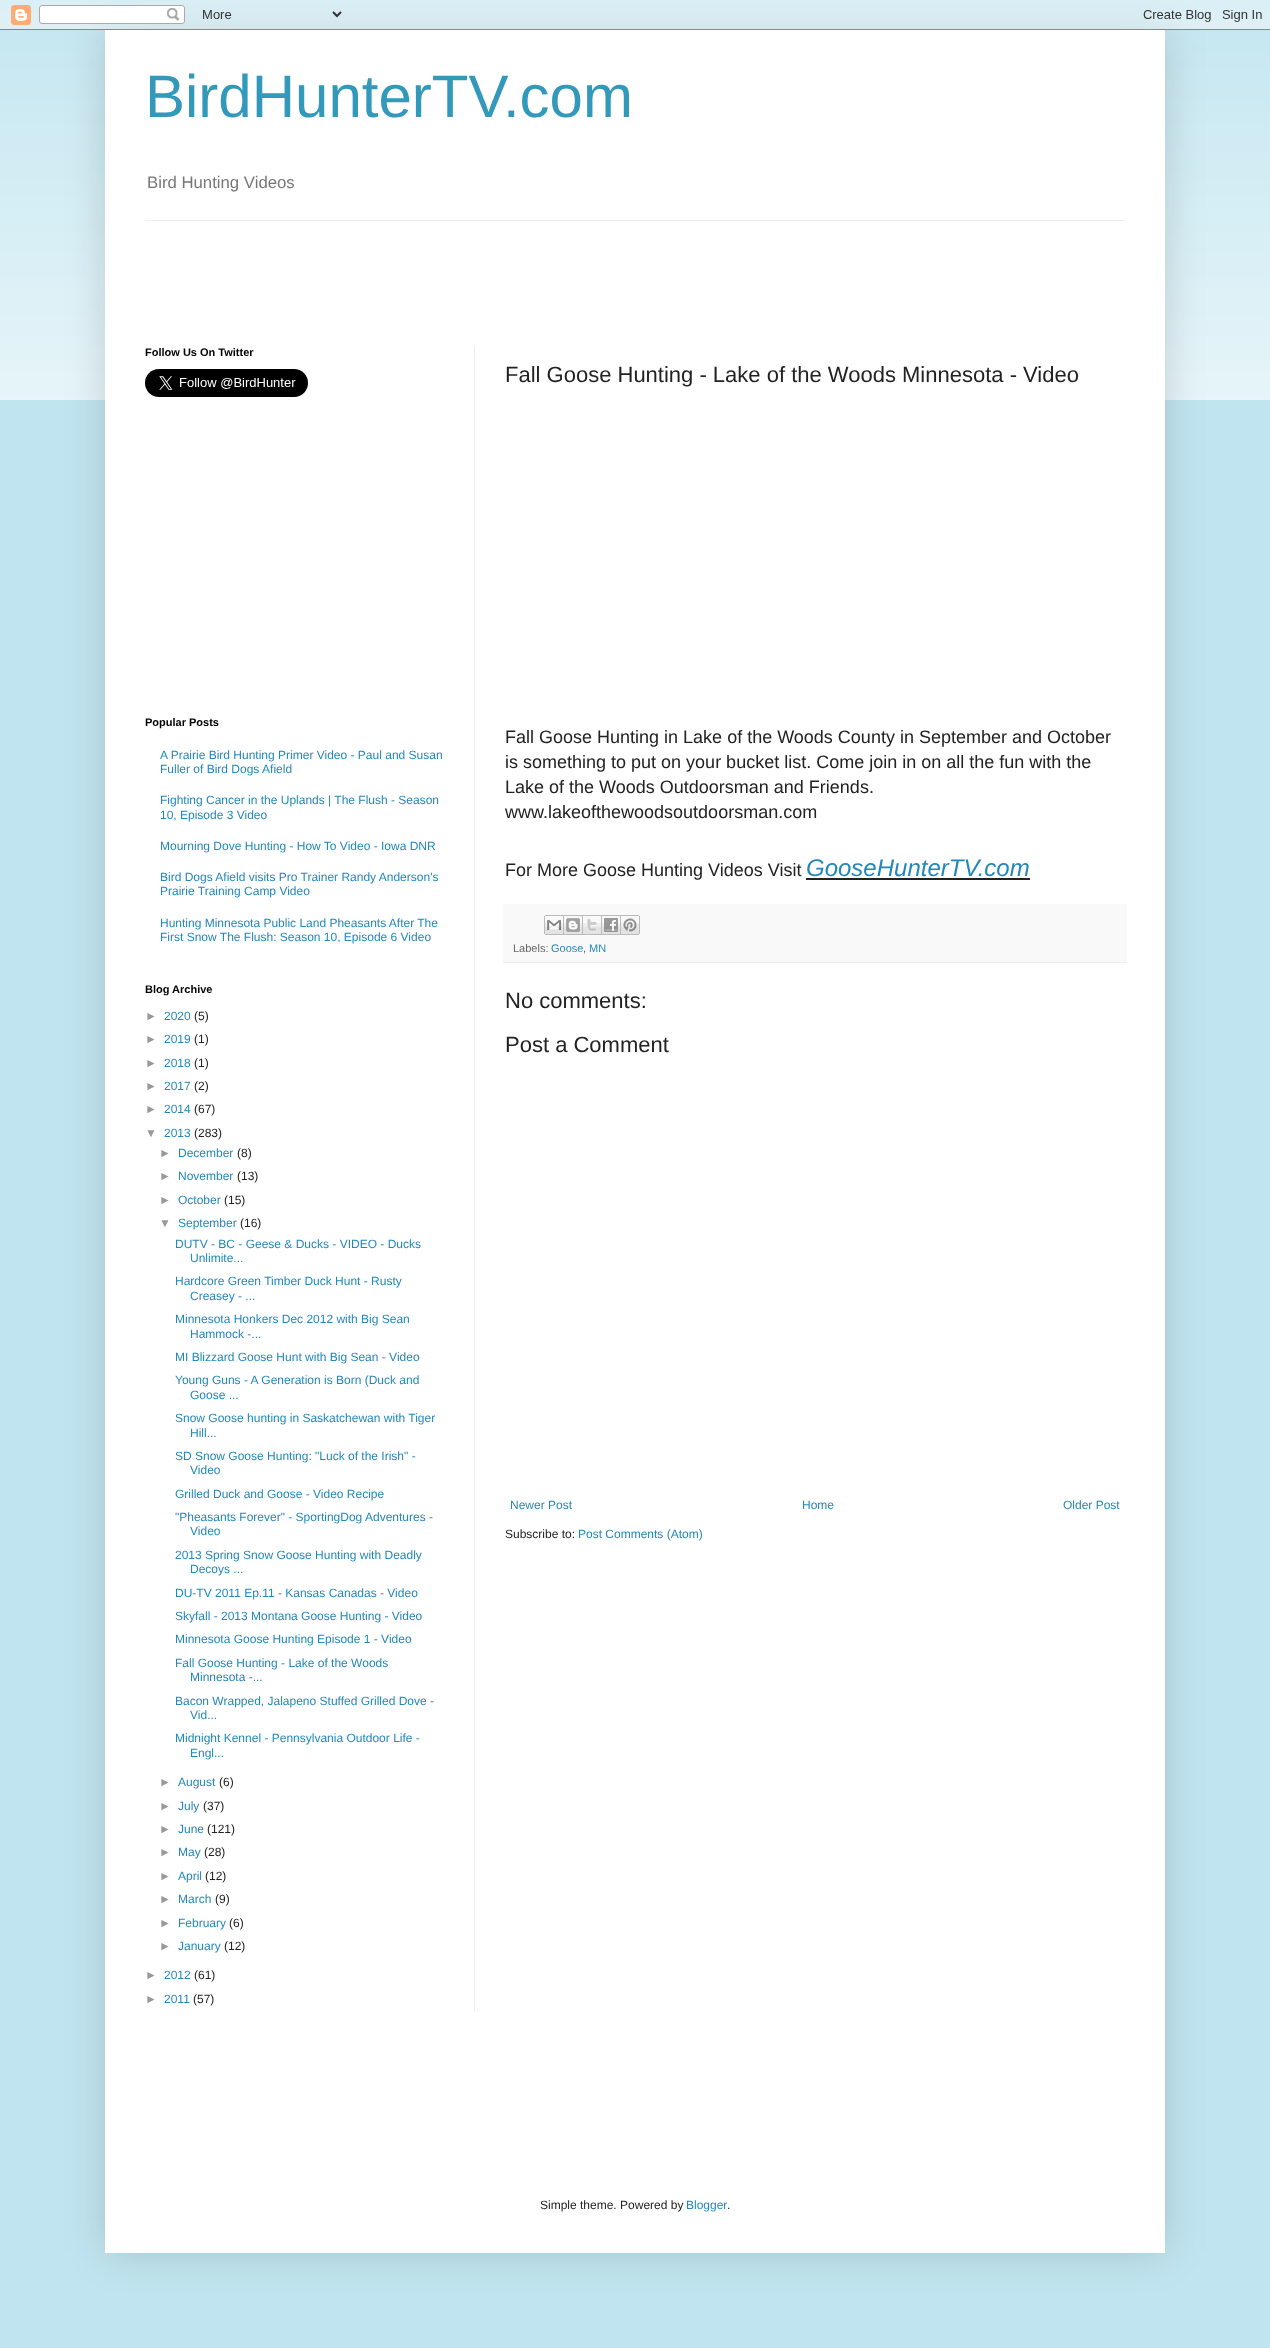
<!DOCTYPE html>
<meta charset="utf-8">
<style>body { margin: 0 } canvas { display: block }</style>
<canvas id="canvas" width="1270" height="2348"></canvas>
<img id="img1" src="images/2.png" hidden>
<img id="img2" src="images/1.png" hidden>
<img id="img3" src="images/3.png" hidden>
<img id="img4" src="images/4.png" hidden>
<img id="img5" src="images/5.png" hidden>
<img id="img6" src="images/6.png" hidden>
<img id="img7" src="images/7.png" hidden>
<img id="img8" src="images/8.png" hidden>
<script>
window.onload = function () {
    const canvas = document.getElementById('canvas');
    const context = canvas.getContext('2d');
    context.miterLimit = 4;
    context.fontKerning = 'normal';

    context.fillStyle = 'rgb(193, 229, 240)';
    context.fillRect(0, 0, 1270, 2348);
    context.drawImage(document.getElementById('img1'), 0, 10, 1270, 390);
    context.fillStyle = 'rgba(0, 0, 0, 0.15)';
    context.filter = 'blur(20px)';
    context.beginPath();
    context.rect(105, 30, 1060, 2223);
    context.fill();
    context.filter = 'none';
    context.drawImage(document.getElementById('img2'), 0, 0, 1270, 30);
    context.fillStyle = 'rgb(255, 255, 255)';
    context.fillRect(105, 30, 1060, 2223);
    context.fillStyle = 'rgb(238, 238, 238)';
    context.fillRect(145, 220, 980, 1);
    context.fillRect(474, 346, 1, 1666);
    context.drawImage(document.getElementById('img3'), 145, 369, 163, 28);
    context.fillStyle = 'rgb(34, 34, 34)';
    context.fillRect(806, 878, 224, 2);
    context.fillStyle = 'rgb(249, 249, 249)';
    context.fillRect(503, 904, 624, 58);
    context.fillStyle = 'rgb(238, 238, 238)';
    context.fillRect(503, 962, 624, 1);
    context.drawImage(document.getElementById('img4'), 544, 915, 20, 20);
    context.drawImage(document.getElementById('img5'), 564, 915, 19, 20);
    context.drawImage(document.getElementById('img6'), 583, 915, 19, 20);
    context.drawImage(document.getElementById('img7'), 602, 915, 19, 20);
    context.drawImage(document.getElementById('img8'), 621, 915, 19, 20);
    context.font = '60px Liberation Sans';
    context.fillStyle = 'rgb(51, 153, 187)';
    context.fillText('BirdHunterTV.com', 145, 117);
    context.font = '16.75px Liberation Sans';
    context.fillStyle = 'rgb(119, 119, 119)';
    context.fillText('Bird Hunting Videos', 147, 188);
    context.font = 'bold 11px Liberation Sans';
    context.fillStyle = 'rgb(0, 0, 0)';
    context.fillText('Follow Us On Twitter', 145, 356);
    context.fillText('Popular Posts', 145, 726);
    context.font = '12px Liberation Sans';
    context.fillStyle = 'rgb(34, 136, 187)';
    context.fillText('A Prairie Bird Hunting Primer Video - Paul and Susan', 160, 759);
    context.fillText('Fuller of Bird Dogs Afield', 160, 773);
    context.fillText('Fighting Cancer in the Uplands | The Flush - Season', 160, 804);
    context.fillText('10, Episode 3 Video', 160, 819);
    context.fillText('Mourning Dove Hunting - How To Video - Iowa DNR', 160, 850);
    context.fillText('Bird Dogs Afield visits Pro Trainer Randy Anderson\'s', 160, 881);
    context.fillText('Prairie Training Camp Video', 160, 895);
    context.fillText('Hunting Minnesota Public Land Pheasants After The', 160, 927);
    context.fillText('First Snow The Flush: Season 10, Episode 6 Video', 160, 941);
    context.font = 'bold 11px Liberation Sans';
    context.fillStyle = 'rgb(0, 0, 0)';
    context.fillText('Blog Archive', 145, 993);
    context.font = '12px Liberation Sans';
    context.fillStyle = 'rgb(153, 153, 153)';
    context.fillText('►', 145, 1020);
    context.fillStyle = 'rgb(34, 136, 187)';
    context.fillText('2020', 164, 1020);
    context.fillStyle = 'rgb(34, 34, 34)';
    context.fillText('(5)', 194, 1020);
    context.fillStyle = 'rgb(153, 153, 153)';
    context.fillText('►', 145, 1043);
    context.fillStyle = 'rgb(34, 136, 187)';
    context.fillText('2019', 164, 1043);
    context.fillStyle = 'rgb(34, 34, 34)';
    context.fillText('(1)', 194, 1043);
    context.fillStyle = 'rgb(153, 153, 153)';
    context.fillText('►', 145, 1067);
    context.fillStyle = 'rgb(34, 136, 187)';
    context.fillText('2018', 164, 1067);
    context.fillStyle = 'rgb(34, 34, 34)';
    context.fillText('(1)', 194, 1067);
    context.fillStyle = 'rgb(153, 153, 153)';
    context.fillText('►', 145, 1090);
    context.fillStyle = 'rgb(34, 136, 187)';
    context.fillText('2017', 164, 1090);
    context.fillStyle = 'rgb(34, 34, 34)';
    context.fillText('(2)', 194, 1090);
    context.fillStyle = 'rgb(153, 153, 153)';
    context.fillText('►', 145, 1113);
    context.fillStyle = 'rgb(34, 136, 187)';
    context.fillText('2014', 164, 1113);
    context.fillStyle = 'rgb(34, 34, 34)';
    context.fillText('(67)', 194, 1113);
    context.fillStyle = 'rgb(153, 153, 153)';
    context.fillText('▼', 145, 1137);
    context.fillStyle = 'rgb(34, 136, 187)';
    context.fillText('2013', 164, 1137);
    context.fillStyle = 'rgb(34, 34, 34)';
    context.fillText('(283)', 194, 1137);
    context.fillStyle = 'rgb(153, 153, 153)';
    context.fillText('►', 159, 1157);
    context.fillStyle = 'rgb(34, 136, 187)';
    context.fillText('December', 178, 1157);
    context.fillStyle = 'rgb(34, 34, 34)';
    context.fillText('(8)', 237, 1157);
    context.fillStyle = 'rgb(153, 153, 153)';
    context.fillText('►', 159, 1180);
    context.fillStyle = 'rgb(34, 136, 187)';
    context.fillText('November', 178, 1180);
    context.fillStyle = 'rgb(34, 34, 34)';
    context.fillText('(13)', 237, 1180);
    context.fillStyle = 'rgb(153, 153, 153)';
    context.fillText('►', 159, 1204);
    context.fillStyle = 'rgb(34, 136, 187)';
    context.fillText('October', 178, 1204);
    context.fillStyle = 'rgb(34, 34, 34)';
    context.fillText('(15)', 224, 1204);
    context.fillStyle = 'rgb(153, 153, 153)';
    context.fillText('▼', 159, 1227);
    context.fillStyle = 'rgb(34, 136, 187)';
    context.fillText('September', 178, 1227);
    context.fillStyle = 'rgb(34, 34, 34)';
    context.fillText('(16)', 240, 1227);
    context.fillStyle = 'rgb(34, 136, 187)';
    context.fillText('DUTV - BC - Geese & Ducks - VIDEO - Ducks', 175, 1248);
    context.fillText('Unlimite...', 190, 1262);
    context.fillText('Hardcore Green Timber Duck Hunt - Rusty', 175, 1285);
    context.fillText('Creasey - ...', 190, 1300);
    context.fillText('Minnesota Honkers Dec 2012 with Big Sean', 175, 1323);
    context.fillText('Hammock -...', 190, 1338);
    context.fillText('MI Blizzard Goose Hunt with Big Sean - Video', 175, 1361);
    context.fillText('Young Guns - A Generation is Born (Duck and', 175, 1384);
    context.fillText('Goose ...', 190, 1399);
    context.fillText('Snow Goose hunting in Saskatchewan with Tiger', 175, 1422);
    context.fillText('Hill...', 190, 1437);
    context.fillText('SD Snow Goose Hunting: "Luck of the Irish" -', 175, 1460);
    context.fillText('Video', 190, 1474);
    context.fillText('Grilled Duck and Goose - Video Recipe', 175, 1498);
    context.fillText('"Pheasants Forever" - SportingDog Adventures -', 175, 1521);
    context.fillText('Video', 190, 1535);
    context.fillText('2013 Spring Snow Goose Hunting with Deadly', 175, 1559);
    context.fillText('Decoys ...', 190, 1573);
    context.fillText('DU-TV 2011 Ep.11 - Kansas Canadas - Video', 175, 1597);
    context.fillText('Skyfall - 2013 Montana Goose Hunting - Video', 175, 1620);
    context.fillText('Minnesota Goose Hunting Episode 1 - Video', 175, 1643);
    context.fillText('Fall Goose Hunting - Lake of the Woods', 175, 1667);
    context.fillText('Minnesota -...', 190, 1681);
    context.fillText('Bacon Wrapped, Jalapeno Stuffed Grilled Dove -', 175, 1705);
    context.fillText('Vid...', 190, 1719);
    context.fillText('Midnight Kennel - Pennsylvania Outdoor Life -', 175, 1742);
    context.fillText('Engl...', 190, 1757);
    context.fillStyle = 'rgb(153, 153, 153)';
    context.fillText('►', 159, 1786);
    context.fillStyle = 'rgb(34, 136, 187)';
    context.fillText('August', 178, 1786);
    context.fillStyle = 'rgb(34, 34, 34)';
    context.fillText('(6)', 219, 1786);
    context.fillStyle = 'rgb(153, 153, 153)';
    context.fillText('►', 159, 1810);
    context.fillStyle = 'rgb(34, 136, 187)';
    context.fillText('July', 178, 1810);
    context.fillStyle = 'rgb(34, 34, 34)';
    context.fillText('(37)', 203, 1810);
    context.fillStyle = 'rgb(153, 153, 153)';
    context.fillText('►', 159, 1833);
    context.fillStyle = 'rgb(34, 136, 187)';
    context.fillText('June', 178, 1833);
    context.fillStyle = 'rgb(34, 34, 34)';
    context.fillText('(121)', 207, 1833);
    context.fillStyle = 'rgb(153, 153, 153)';
    context.fillText('►', 159, 1856);
    context.fillStyle = 'rgb(34, 136, 187)';
    context.fillText('May', 178, 1856);
    context.fillStyle = 'rgb(34, 34, 34)';
    context.fillText('(28)', 204, 1856);
    context.fillStyle = 'rgb(153, 153, 153)';
    context.fillText('►', 159, 1880);
    context.fillStyle = 'rgb(34, 136, 187)';
    context.fillText('April', 178, 1880);
    context.fillStyle = 'rgb(34, 34, 34)';
    context.fillText('(12)', 205, 1880);
    context.fillStyle = 'rgb(153, 153, 153)';
    context.fillText('►', 159, 1903);
    context.fillStyle = 'rgb(34, 136, 187)';
    context.fillText('March', 178, 1903);
    context.fillStyle = 'rgb(34, 34, 34)';
    context.fillText('(9)', 215, 1903);
    context.fillStyle = 'rgb(153, 153, 153)';
    context.fillText('►', 159, 1927);
    context.fillStyle = 'rgb(34, 136, 187)';
    context.fillText('February', 178, 1927);
    context.fillStyle = 'rgb(34, 34, 34)';
    context.fillText('(6)', 229, 1927);
    context.fillStyle = 'rgb(153, 153, 153)';
    context.fillText('►', 159, 1950);
    context.fillStyle = 'rgb(34, 136, 187)';
    context.fillText('January', 178, 1950);
    context.fillStyle = 'rgb(34, 34, 34)';
    context.fillText('(12)', 224, 1950);
    context.fillStyle = 'rgb(153, 153, 153)';
    context.fillText('►', 145, 1979);
    context.fillStyle = 'rgb(34, 136, 187)';
    context.fillText('2012', 164, 1979);
    context.fillStyle = 'rgb(34, 34, 34)';
    context.fillText('(61)', 194, 1979);
    context.fillStyle = 'rgb(153, 153, 153)';
    context.fillText('►', 145, 2003);
    context.fillStyle = 'rgb(34, 136, 187)';
    context.fillText('2011', 164, 2003);
    context.fillStyle = 'rgb(34, 34, 34)';
    context.fillText('(57)', 193, 2003);
    context.font = '22px Liberation Sans';
    context.fillText('Fall Goose Hunting - Lake of the Woods Minnesota - Video', 505, 382);
    context.font = '18px Liberation Sans';
    context.fillText('Fall Goose Hunting in Lake of the Woods County in September and October', 505, 743);
    context.fillText('is something to put on your bucket list. Come join in on all the fun with the', 505, 768);
    context.fillText('Lake of the Woods Outdoorsman and Friends.', 505, 793);
    context.fillText('www.lakeofthewoodsoutdoorsman.com', 505, 818);
    context.fillText('For More Goose Hunting Videos Visit', 505, 876);
    context.font = 'italic 24px Liberation Sans';
    context.fillStyle = 'rgb(34, 136, 187)';
    context.fillText('GooseHunterTV.com', 806, 876);
    context.font = '11px Liberation Sans';
    context.fillStyle = 'rgb(102, 102, 102)';
    context.fillText('Labels:', 513, 952);
    context.fillStyle = 'rgb(34, 136, 187)';
    context.fillText('Goose', 551, 952);
    context.fillStyle = 'rgb(102, 102, 102)';
    context.fillText(',', 583, 952);
    context.fillStyle = 'rgb(34, 136, 187)';
    context.fillText('MN', 589, 952);
    context.font = '22px Liberation Sans';
    context.fillStyle = 'rgb(34, 34, 34)';
    context.fillText('No comments:', 505, 1008);
    context.fillText('Post a Comment', 505, 1052);
    context.font = '12px Liberation Sans';
    context.fillStyle = 'rgb(34, 136, 187)';
    context.fillText('Newer Post', 510, 1509);
    context.fillText('Home', 802, 1509);
    context.fillText('Older Post', 1063, 1509);
    context.fillStyle = 'rgb(34, 34, 34)';
    context.fillText('Subscribe to:', 505, 1538);
    context.fillStyle = 'rgb(34, 136, 187)';
    context.fillText('Post Comments (Atom)', 578, 1538);
    context.fillStyle = 'rgb(34, 34, 34)';
    context.fillText('Simple theme. Powered by', 540, 2209);
    context.fillStyle = 'rgb(34, 136, 187)';
    context.fillText('Blogger', 686, 2209);
    context.fillStyle = 'rgb(34, 34, 34)';
    context.fillText('.', 727, 2209);
};
</script>
